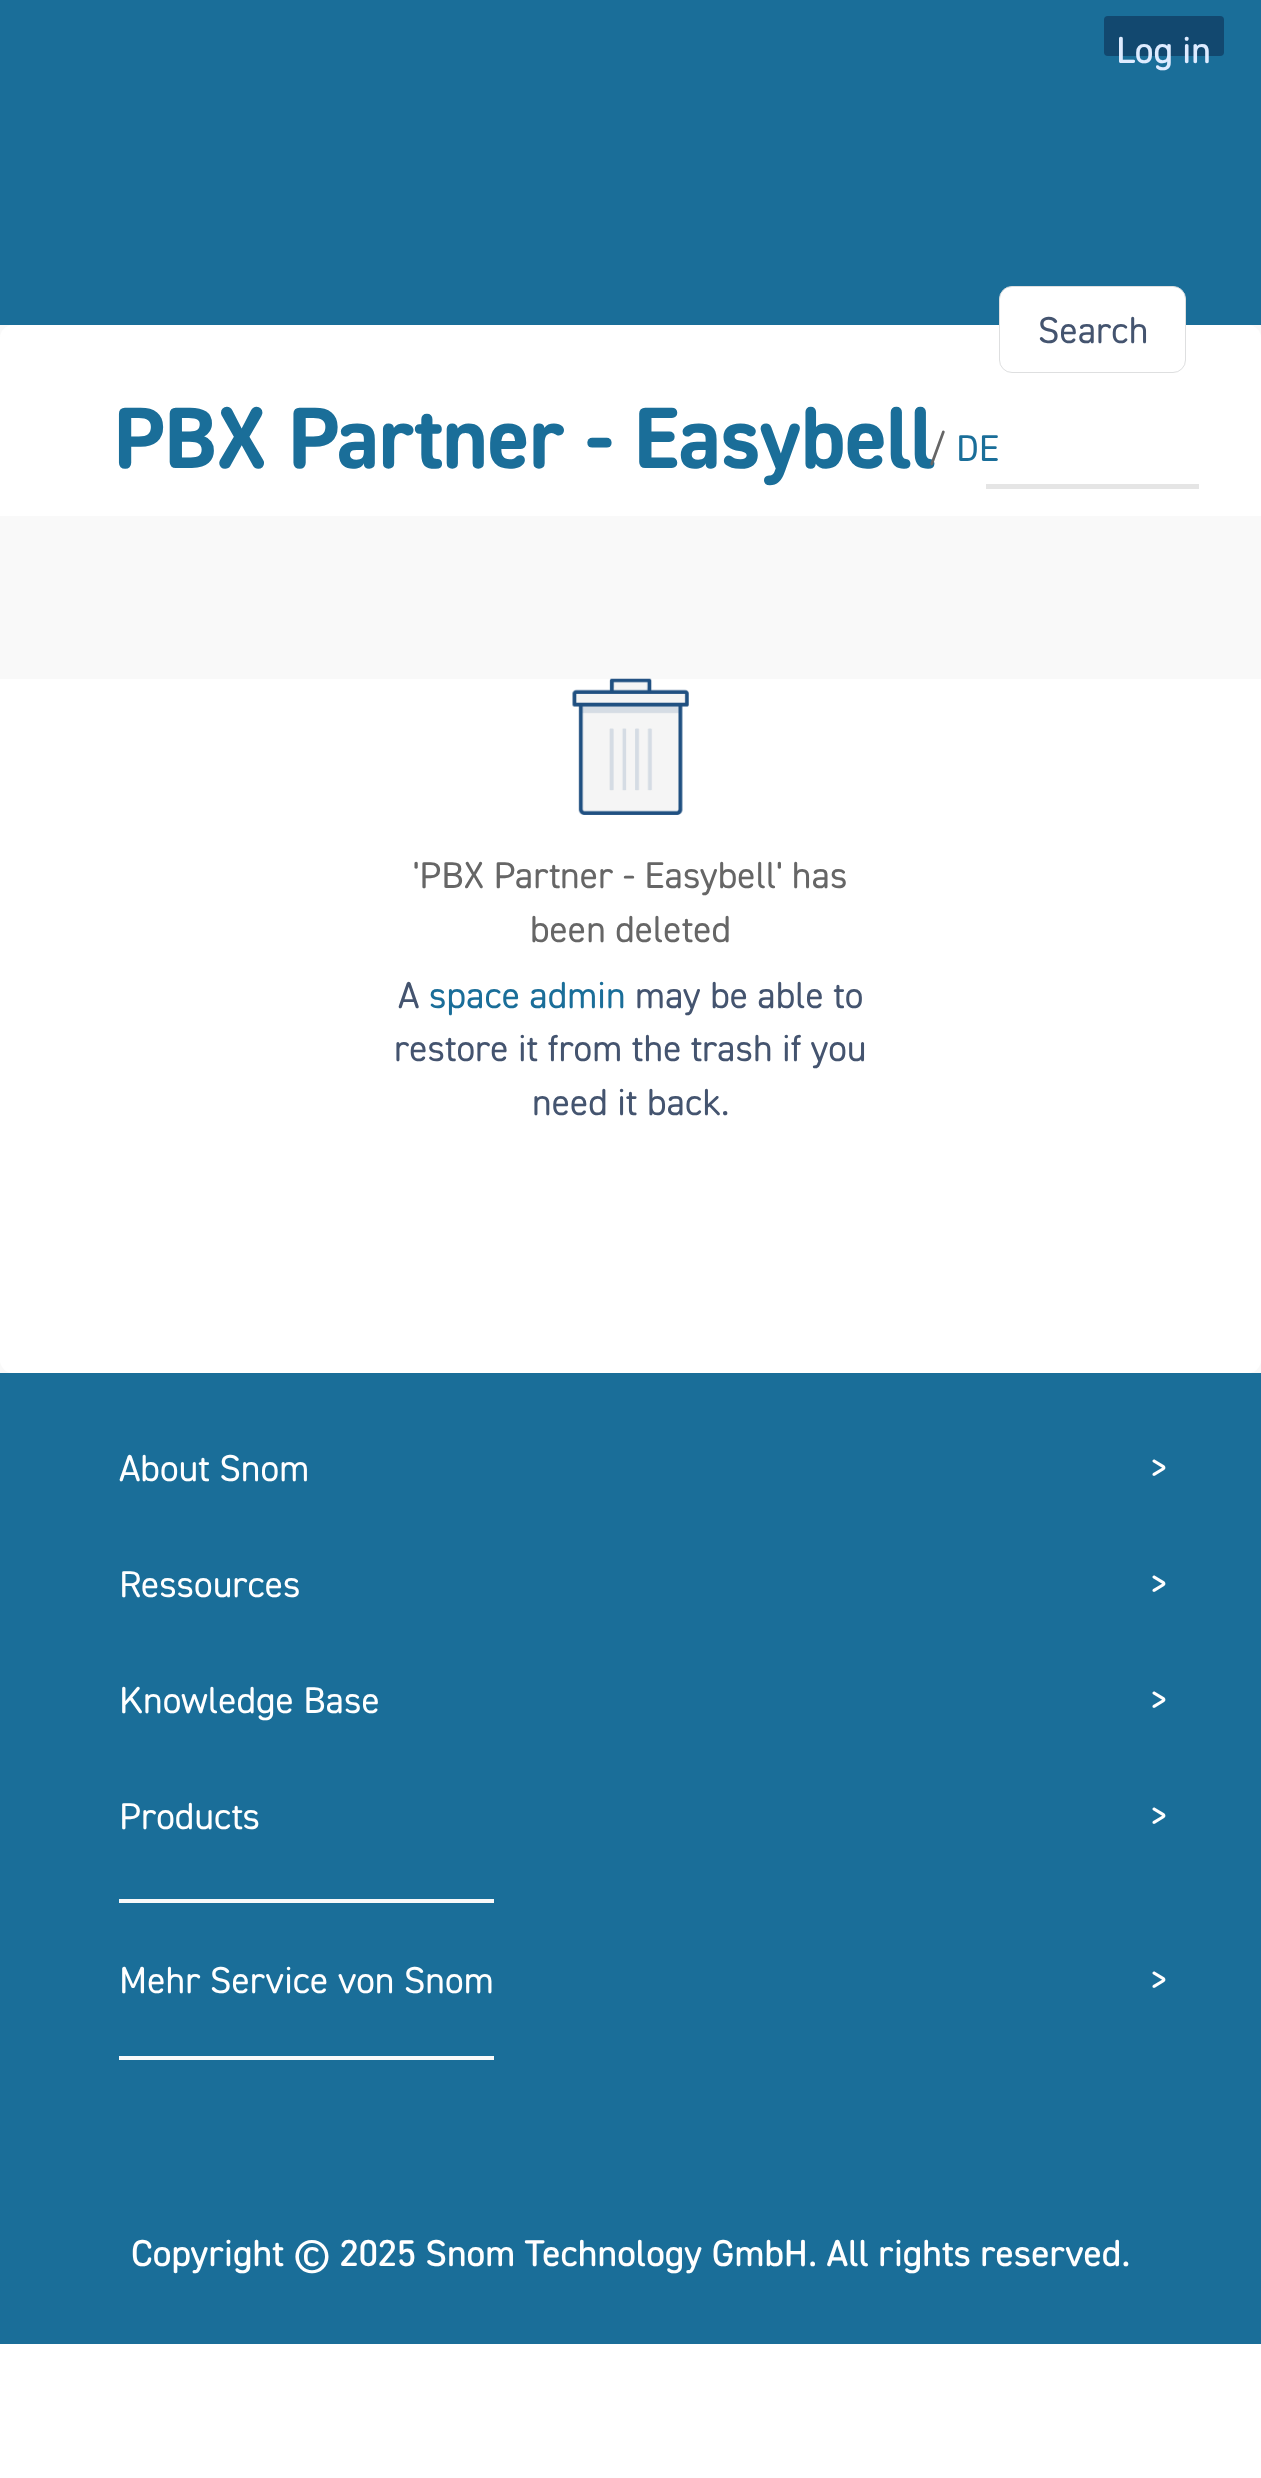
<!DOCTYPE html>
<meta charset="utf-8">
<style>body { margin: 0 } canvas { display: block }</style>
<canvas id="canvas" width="1261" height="2478"></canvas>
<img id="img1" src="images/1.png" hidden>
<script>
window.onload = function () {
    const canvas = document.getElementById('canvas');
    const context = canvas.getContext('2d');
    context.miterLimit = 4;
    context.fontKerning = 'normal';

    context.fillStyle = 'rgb(255, 255, 255)';
    context.fillRect(0, 0, 1261, 2478);
    context.fillStyle = 'rgb(26, 110, 153)';
    context.fillRect(0, 0, 1261, 325);
    context.fillStyle = 'rgb(18, 72, 111)';
    context.beginPath();
    context.roundRect(1104, 16, 120, 40, 4);
    context.fill();
    context.fillStyle = 'rgb(249, 249, 249)';
    context.fillRect(0, 325, 1261, 1048);
    context.fillStyle = 'rgb(255, 255, 255)';
    context.beginPath();
    context.roundRect(0, 325, 1261, 191, [13, 13, 0, 0]);
    context.fill();
    context.beginPath();
    context.roundRect(999.5, 286.5, 186, 86, 12.5);
    context.fill();
    context.strokeStyle = 'rgb(222, 223, 224)';
    context.stroke();
    context.fillStyle = 'rgb(229, 229, 229)';
    context.fillRect(986, 484, 213, 5);
    context.fillStyle = 'rgb(255, 255, 255)';
    context.beginPath();
    context.roundRect(0, 679, 1261, 694, [0, 0, 13, 13]);
    context.fill();
    context.drawImage(document.getElementById('img1'), 572, 678, 117, 137);
    context.fillStyle = 'rgb(26, 110, 153)';
    context.fillRect(0, 1373, 1261, 971);
    context.fillStyle = 'rgb(249, 249, 249)';
    context.fillRect(119, 1899, 375, 4);
    context.fillRect(119, 2056, 375, 4);
    context.font = '500 37.5px "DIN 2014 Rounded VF"';
    context.fillStyle = 'rgb(222, 235, 255)';
    context.fillText('Log in', 1116, 63);
    context.font = '37.5px "DIN 2014 Rounded VF"';
    context.fillStyle = 'rgb(68, 84, 111)';
    context.fillText('Search', 1038, 343);
    context.fillStyle = 'rgb(26, 110, 153)';
    context.fillText('DE', 956, 461);
    context.letterSpacing = '-0.9px';
    context.font = 'bold 87.5px "DIN 2014 Rounded VF"';
    context.fillText('PBX Partner - Easybell', 113, 468);
    context.letterSpacing = '0px';
    context.font = '37.5px "DIN 2014 Rounded VF"';
    context.fillStyle = 'rgb(102, 102, 102)';
    context.fillText('/', 928, 461);
    context.fillText('\'PBX Partner - Easybell\' has', 413, 888);
    context.fillText('been deleted', 530, 942);
    context.fillStyle = 'rgb(68, 84, 111)';
    context.fillText('A', 398, 1008);
    context.fillStyle = 'rgb(26, 110, 153)';
    context.fillText('space admin', 429, 1008);
    context.fillStyle = 'rgb(68, 84, 111)';
    context.fillText('may be able to', 635, 1008);
    context.fillText('restore it from the trash if you', 394, 1061);
    context.fillText('need it back.', 532, 1115);
    context.fillStyle = 'rgb(255, 255, 255)';
    context.fillText('About Snom', 119, 1481);
    context.fillText('>', 1149, 1481);
    context.fillText('Ressources', 119, 1597);
    context.fillText('>', 1149, 1597);
    context.fillText('Knowledge Base', 119, 1713);
    context.fillText('>', 1149, 1713);
    context.fillText('Products', 119, 1829);
    context.fillText('>', 1149, 1829);
    context.fillText('Mehr Service von Snom', 119, 1993);
    context.fillText('>', 1149, 1993);
    context.font = '500 37.5px "DIN 2014 Rounded VF"';
    context.fillText('Copyright © 2025 Snom Technology GmbH. All rights reserved.', 131, 2266);
};
</script>
